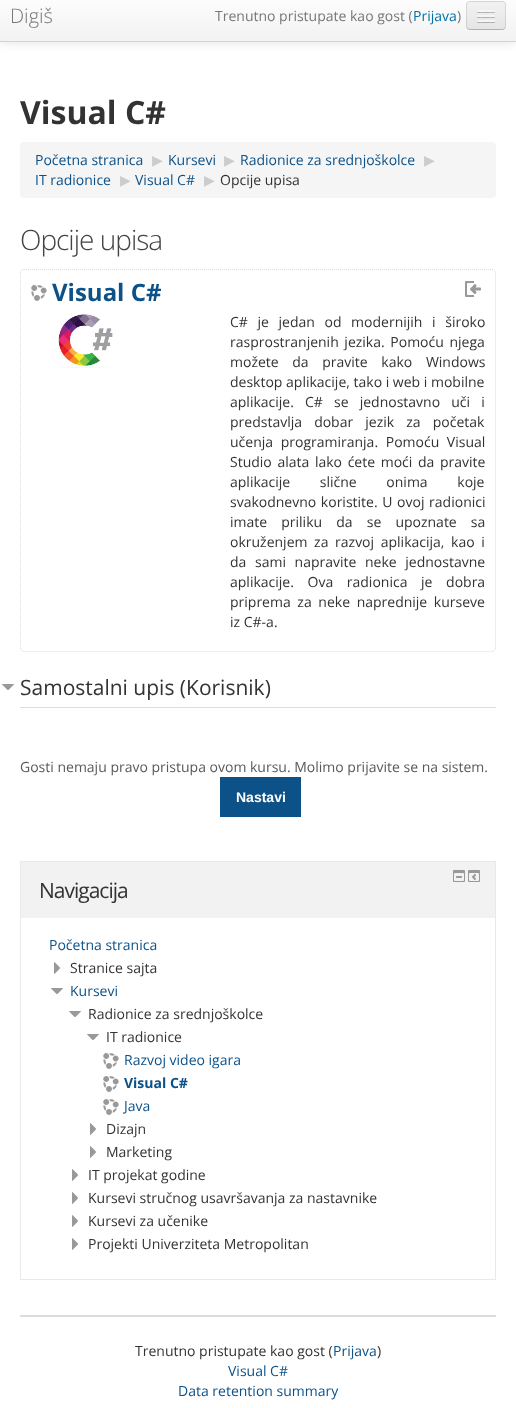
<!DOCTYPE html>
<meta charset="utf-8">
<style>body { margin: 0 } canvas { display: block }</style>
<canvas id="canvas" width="516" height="1408"></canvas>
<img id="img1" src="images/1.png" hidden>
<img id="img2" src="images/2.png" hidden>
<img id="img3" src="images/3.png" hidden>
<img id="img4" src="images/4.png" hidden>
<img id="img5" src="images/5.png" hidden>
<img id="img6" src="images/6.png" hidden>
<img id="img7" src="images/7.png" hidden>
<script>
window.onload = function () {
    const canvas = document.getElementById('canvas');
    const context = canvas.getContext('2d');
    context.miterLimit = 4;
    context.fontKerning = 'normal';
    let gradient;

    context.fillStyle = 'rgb(255, 255, 255)';
    context.fillRect(0, 0, 516, 1408);
    context.fillStyle = 'rgba(0, 0, 0, 0.1)';
    context.filter = 'blur(5px)';
    context.beginPath();
    context.rect(0, -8, 516, 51);
    context.fill();
    context.filter = 'none';
    gradient = context.createLinearGradient(258, -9, 258, 41);
    gradient.addColorStop(0, 'rgb(255, 255, 255)');
    gradient.addColorStop(1, 'rgb(242, 242, 242)');
    context.fillStyle = gradient;
    context.fillRect(0, 0, 516, 41);
    context.fillStyle = 'rgb(212, 212, 212)';
    context.fillRect(0, 41, 516, 1);
    context.fillStyle = 'rgb(237, 237, 237)';
    context.beginPath();
    context.roundRect(466, 1, 40, 29, 4);
    context.fill();
    context.save();
    context.beginPath();
    context.roundRect(466, 1, 40, 29, 4);
    context.clip();
    gradient = context.createLinearGradient(486, 2, 486, 29);
    gradient.addColorStop(0, 'rgb(242, 242, 242)');
    gradient.addColorStop(1, 'rgb(229, 229, 229)');
    context.fillStyle = gradient;
    context.fillRect(466, 2, 40, 27);
    context.restore();
    context.beginPath();
    context.moveTo(504.5, 28.5);
    context.bezierCurveTo(504, 29, 503, 29.5, 502, 29.5);
    context.lineTo(470, 29.5);
    context.bezierCurveTo(469, 29.5, 468, 29, 467.5, 28.5);
    context.strokeStyle = 'rgba(0, 0, 0, 0.25)';
    context.stroke();
    context.beginPath();
    context.moveTo(467.5, 28.5);
    context.bezierCurveTo(467, 28, 466.5, 27, 466.5, 26);
    context.lineTo(466.5, 5);
    context.bezierCurveTo(466.5, 4, 467, 3, 467.5, 2.5);
    context.bezierCurveTo(468, 2, 469, 1.5, 470, 1.5);
    context.lineTo(502, 1.5);
    context.bezierCurveTo(503, 1.5, 504, 2, 504.5, 2.5);
    context.bezierCurveTo(505, 3, 505.5, 4, 505.5, 5);
    context.lineTo(505.5, 26);
    context.bezierCurveTo(505.5, 27, 505, 28, 504.5, 28.5);
    context.strokeStyle = 'rgba(0, 0, 0, 0.1)';
    context.stroke();
    context.fillStyle = 'rgb(178, 178, 178)';
    context.beginPath();
    context.moveTo(477, 11.5);
    context.bezierCurveTo(476, 13.5, 480.5, 13, 480.5, 13);
    context.lineTo(491.5, 13);
    context.bezierCurveTo(491.5, 13, 496, 13.5, 495, 11.5);
    context.bezierCurveTo(494, 12.5, 487.5, 12, 486, 12);
    context.bezierCurveTo(484.5, 12, 478, 12.5, 477, 11.5);
    context.closePath();
    context.fill();
    context.fillStyle = 'rgb(245, 245, 245)';
    context.beginPath();
    context.roundRect(477, 10, 18, 2, 1);
    context.fill();
    context.fillStyle = 'rgb(176, 176, 176)';
    context.beginPath();
    context.moveTo(477, 16.5);
    context.bezierCurveTo(476, 18.5, 480.5, 18, 480.5, 18);
    context.lineTo(491.5, 18);
    context.bezierCurveTo(491.5, 18, 496, 18.5, 495, 16.5);
    context.bezierCurveTo(494, 17.5, 487.5, 17, 486, 17);
    context.bezierCurveTo(484.5, 17, 478, 17.5, 477, 16.5);
    context.closePath();
    context.fill();
    context.fillStyle = 'rgb(245, 245, 245)';
    context.beginPath();
    context.roundRect(477, 15, 18, 2, 1);
    context.fill();
    context.fillStyle = 'rgb(174, 174, 174)';
    context.beginPath();
    context.moveTo(477, 21.5);
    context.bezierCurveTo(476, 23.5, 480.5, 23, 480.5, 23);
    context.lineTo(491.5, 23);
    context.bezierCurveTo(491.5, 23, 496, 23.5, 495, 21.5);
    context.bezierCurveTo(494, 22.5, 487.5, 22, 486, 22);
    context.bezierCurveTo(484.5, 22, 478, 22.5, 477, 21.5);
    context.closePath();
    context.fill();
    context.fillStyle = 'rgb(245, 245, 245)';
    context.beginPath();
    context.roundRect(477, 20, 18, 2, 1);
    context.fill();
    context.beginPath();
    context.roundRect(20, 142, 476, 56, 4);
    context.fill();
    context.beginPath();
    context.moveTo(24, 269.5);
    context.lineTo(492, 269.5);
    context.bezierCurveTo(494, 269.5, 495.5, 271, 495.5, 273);
    context.lineTo(495.5, 648);
    context.bezierCurveTo(495.5, 650, 494, 651.5, 492, 651.5);
    context.lineTo(24, 651.5);
    context.bezierCurveTo(22, 651.5, 20.5, 650, 20.5, 648);
    context.lineTo(20.5, 273);
    context.bezierCurveTo(20.5, 271, 22, 269.5, 24, 269.5);
    context.closePath();
    context.strokeStyle = 'rgb(221, 221, 221)';
    context.setLineDash([1, 1]);
    context.stroke();
    context.drawImage(document.getElementById('img1'), 31, 285, 16, 16);
    context.drawImage(document.getElementById('img2'), 465, 281, 16, 16);
    context.drawImage(document.getElementById('img3'), 58, 314, 55, 54);
    context.fillStyle = 'rgb(221, 221, 221)';
    context.fillRect(20, 707, 476, 1);
    context.drawImage(document.getElementById('img4'), 2, 684, 12, 6);
    context.fillStyle = 'rgb(12, 81, 136)';
    context.fillRect(220, 777, 81, 40);
    context.strokeStyle = 'rgb(233, 233, 233)';
    context.setLineDash([]);
    context.strokeRect(20.5, 861.5, 475, 418);
    context.fillStyle = 'rgb(242, 242, 242)';
    context.fillRect(21, 862, 474, 56);
    context.drawImage(document.getElementById('img5'), 453, 870, 12, 12);
    context.drawImage(document.getElementById('img6'), 468, 870, 12, 12);
    context.drawImage(document.getElementById('img7'), 54, 962, 6, 12);
    context.drawImage(document.getElementById('img4'), 51, 988, 12, 6);
    context.drawImage(document.getElementById('img4'), 69, 1011, 12, 6);
    context.drawImage(document.getElementById('img4'), 87, 1034, 12, 6);
    context.drawImage(document.getElementById('img1'), 103, 1053, 16, 16);
    context.drawImage(document.getElementById('img1'), 103, 1076, 16, 16);
    context.drawImage(document.getElementById('img1'), 103, 1099, 16, 16);
    context.drawImage(document.getElementById('img7'), 90, 1123, 6, 12);
    context.drawImage(document.getElementById('img7'), 90, 1146, 6, 12);
    context.drawImage(document.getElementById('img7'), 72, 1169, 6, 12);
    context.drawImage(document.getElementById('img7'), 72, 1192, 6, 12);
    context.drawImage(document.getElementById('img7'), 72, 1215, 6, 12);
    context.drawImage(document.getElementById('img7'), 72, 1238, 6, 12);
    context.fillStyle = 'rgb(221, 221, 221)';
    context.fillRect(20, 1315, 476, 2);
    context.font = '300 20px Open Sans';
    context.fillStyle = 'rgb(119, 119, 119)';
    context.fillText('Digiš', 10, 23);
    context.font = '14px Open Sans';
    context.fillText('Trenutno pristupate kao gost (', 215, 21);
    context.fillStyle = 'rgb(0, 112, 168)';
    context.fillText('Prijava', 413, 21);
    context.fillStyle = 'rgb(119, 119, 119)';
    context.fillText(')', 457, 21);
    context.font = 'bold 32px Open Sans';
    context.fillStyle = 'rgb(51, 51, 51)';
    context.fillText('Visual C#', 20, 124);
    context.font = '14px Open Sans';
    context.fillStyle = 'rgb(12, 81, 136)';
    context.fillText('Početna stranica', 35, 165);
    context.font = '14px DejaVu Sans';
    context.fillStyle = 'rgb(204, 204, 204)';
    context.fillText('▶︎', 152, 165);
    context.font = '14px Open Sans';
    context.fillStyle = 'rgb(12, 81, 136)';
    context.fillText('Kursevi', 168, 165);
    context.font = '14px DejaVu Sans';
    context.fillStyle = 'rgb(204, 204, 204)';
    context.fillText('▶︎', 224, 165);
    context.font = '14px Open Sans';
    context.fillStyle = 'rgb(12, 81, 136)';
    context.fillText('Radionice za srednjoškolce', 240, 165);
    context.font = '14px DejaVu Sans';
    context.fillStyle = 'rgb(204, 204, 204)';
    context.fillText('▶︎', 424, 165);
    context.font = '14px Open Sans';
    context.fillStyle = 'rgb(12, 81, 136)';
    context.fillText('IT radionice', 35, 185);
    context.font = '14px DejaVu Sans';
    context.fillStyle = 'rgb(204, 204, 204)';
    context.fillText('▶︎', 120, 185);
    context.font = '14px Open Sans';
    context.fillStyle = 'rgb(12, 81, 136)';
    context.fillText('Visual C#', 135, 185);
    context.font = '14px DejaVu Sans';
    context.fillStyle = 'rgb(204, 204, 204)';
    context.fillText('▶︎', 204, 185);
    context.font = '14px Open Sans';
    context.fillStyle = 'rgb(51, 51, 51)';
    context.fillText('Opcije upisa', 220, 185);
    context.letterSpacing = '-1px';
    context.font = '300 28px Open Sans';
    context.fillStyle = 'rgb(68, 68, 68)';
    context.fillText('Opcije upisa', 20, 250);
    context.letterSpacing = '0px';
    context.font = 'bold 24px Open Sans';
    context.fillStyle = 'rgb(12, 81, 136)';
    context.fillText('Visual C#', 52, 301);
    context.wordSpacing = '6px';
    context.font = '14px Open Sans';
    context.fillStyle = 'rgb(51, 51, 51)';
    context.fillText('C# je jedan od modernijih i široko', 230, 327);
    context.wordSpacing = '2px';
    context.fillText('rasprostranjenih jezika. Pomoću njega', 230, 347);
    context.wordSpacing = '10px';
    context.fillText('možete da pravite kako Windows', 230, 367);
    context.wordSpacing = '0px';
    context.fillText('desktop aplikacije, tako i web i mobilne', 230, 387);
    context.wordSpacing = '7.5px';
    context.fillText('aplikacije. C# se jednostavno uči i', 230, 407);
    context.wordSpacing = '8.5px';
    context.fillText('predstavlja dobar jezik za početak', 230, 427);
    context.wordSpacing = '4px';
    context.fillText('učenja programiranja. Pomoću Visual', 230, 447);
    context.wordSpacing = '2px';
    context.fillText('Studio alata lako ćete moći da pravite', 230, 467);
    context.wordSpacing = '26px';
    context.fillText('aplikacije slične onima koje', 230, 487);
    context.wordSpacing = '1px';
    context.fillText('svakodnevno koristite. U ovoj radionici', 230, 507);
    context.wordSpacing = '10.5px';
    context.fillText('imate priliku da se upoznate sa', 230, 527);
    context.wordSpacing = '3px';
    context.fillText('okruženjem za razvoj aplikacija, kao i', 230, 547);
    context.wordSpacing = '5px';
    context.fillText('da sami napravite neke jednostavne', 230, 567);
    context.wordSpacing = '10px';
    context.fillText('aplikacije. Ova radionica je dobra', 230, 587);
    context.wordSpacing = '3px';
    context.fillText('priprema za neke naprednije kurseve', 230, 607);
    context.wordSpacing = '0px';
    context.fillText('iz C#-a.', 230, 627);
    context.font = '21px Open Sans';
    context.fillText('Samostalni upis (Korisnik)', 20, 695);
    context.font = '14px Open Sans';
    context.fillStyle = 'rgb(89, 89, 89)';
    context.fillText('Gosti nemaju pravo pristupa ovom kursu. Molimo prijavite se na sistem.', 20, 772);
    context.font = 'bold 14px Liberation Sans';
    context.fillStyle = 'rgb(255, 255, 255)';
    context.fillText('Nastavi', 236, 802);
    context.letterSpacing = '-1px';
    context.font = '21px Open Sans';
    context.fillStyle = 'rgb(51, 51, 51)';
    context.fillText('Navigacija', 39, 898);
    context.letterSpacing = '0px';
    context.font = '14px Open Sans';
    context.fillStyle = 'rgb(12, 81, 136)';
    context.fillText('Početna stranica', 49, 950);
    context.fillStyle = 'rgb(51, 51, 51)';
    context.fillText('Stranice sajta', 70, 973);
    context.fillStyle = 'rgb(12, 81, 136)';
    context.fillText('Kursevi', 70, 996);
    context.fillStyle = 'rgb(51, 51, 51)';
    context.fillText('Radionice za srednjoškolce', 88, 1019);
    context.fillText('IT radionice', 106, 1042);
    context.fillStyle = 'rgb(12, 81, 136)';
    context.fillText('Razvoj video igara', 124, 1065);
    context.font = 'bold 14px Open Sans';
    context.fillText('Visual C#', 124, 1088);
    context.font = '14px Open Sans';
    context.fillText('Java', 124, 1111);
    context.fillStyle = 'rgb(51, 51, 51)';
    context.fillText('Dizajn', 106, 1134);
    context.fillText('Marketing', 106, 1157);
    context.fillText('IT projekat godine', 88, 1180);
    context.fillText('Kursevi stručnog usavršavanja za nastavnike', 88, 1203);
    context.fillText('Kursevi za učenike', 88, 1226);
    context.fillText('Projekti Univerziteta Metropolitan', 88, 1249);
    context.fillText('Trenutno pristupate kao gost (', 135, 1356);
    context.fillStyle = 'rgb(12, 81, 136)';
    context.fillText('Prijava', 333, 1356);
    context.fillStyle = 'rgb(51, 51, 51)';
    context.fillText(')', 377, 1356);
    context.fillStyle = 'rgb(12, 81, 136)';
    context.fillText('Visual C#', 228, 1376);
    context.fillText('Data retention summary', 178, 1396);
};
</script>
